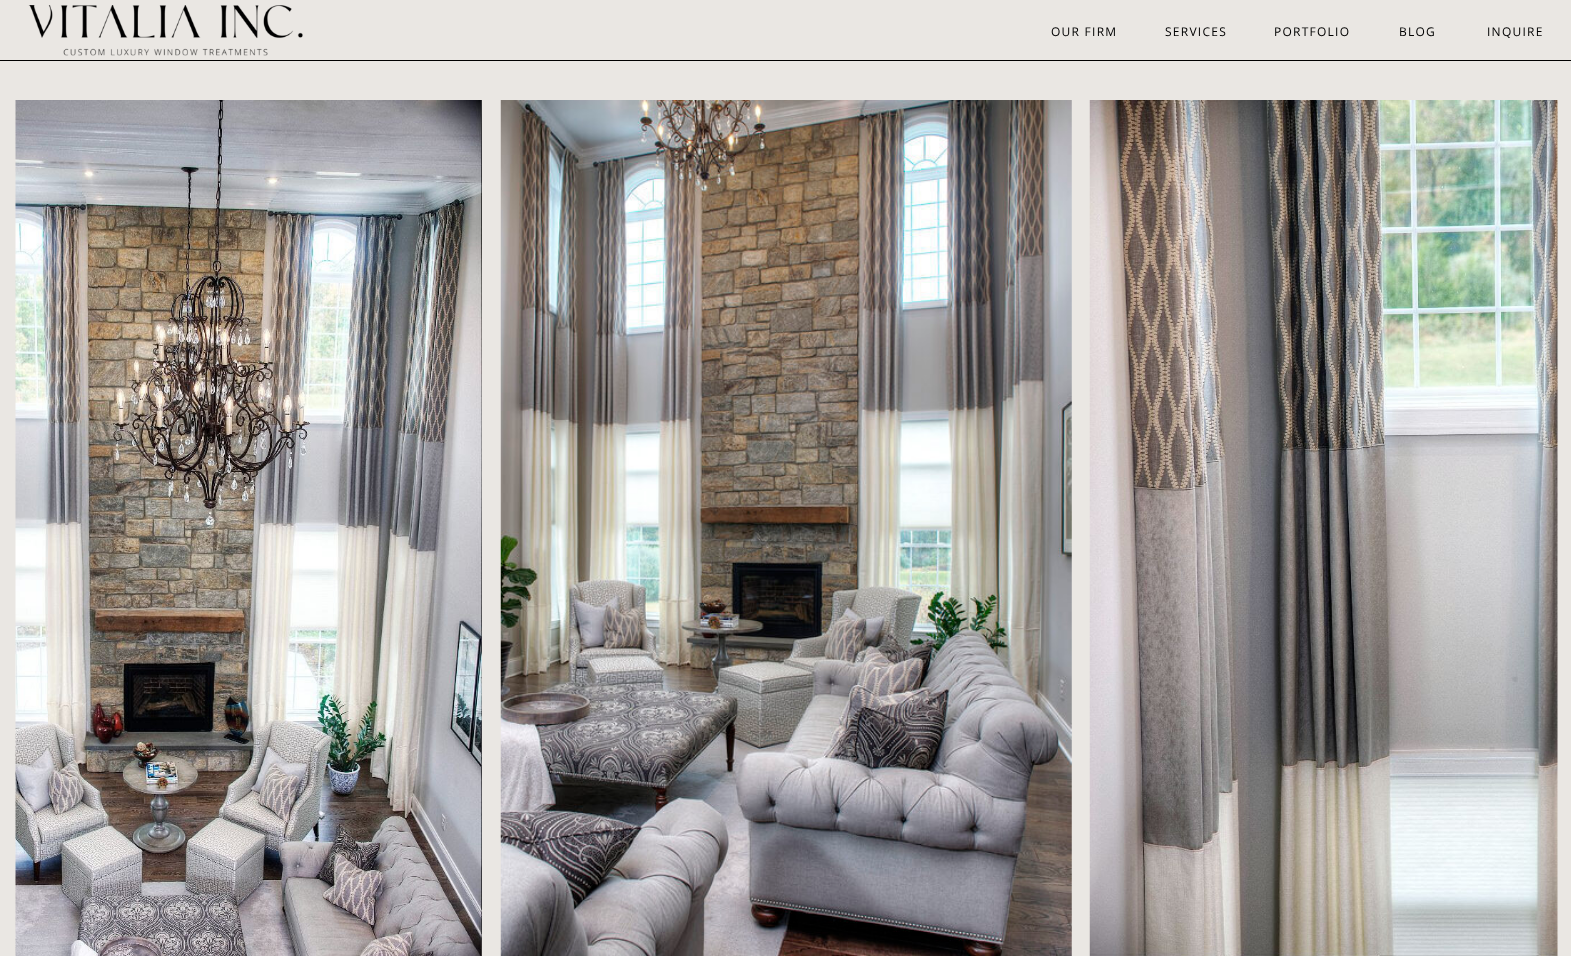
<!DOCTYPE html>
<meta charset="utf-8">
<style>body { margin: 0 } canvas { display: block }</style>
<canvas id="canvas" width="1571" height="956"></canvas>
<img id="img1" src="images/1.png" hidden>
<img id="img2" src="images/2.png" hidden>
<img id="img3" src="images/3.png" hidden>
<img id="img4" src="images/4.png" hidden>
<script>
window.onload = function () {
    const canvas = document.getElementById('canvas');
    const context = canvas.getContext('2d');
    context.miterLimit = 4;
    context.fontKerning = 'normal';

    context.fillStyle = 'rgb(234, 231, 227)';
    context.fillRect(0, 0, 1571, 956);
    context.drawImage(document.getElementById('img1'), 28, 5, 275, 51);
    context.fillStyle = 'rgb(0, 0, 0)';
    context.fillRect(0, 60, 1571, 1);
    context.drawImage(document.getElementById('img2'), 15, 100, 467, 856);
    context.drawImage(document.getElementById('img3'), 500, 100, 572, 856);
    context.drawImage(document.getElementById('img4'), 1089, 100, 469, 856);
    context.letterSpacing = '1.25px';
    context.font = '12px Open Sans';
    context.fillText('OUR FIRM', 1051, 36);
    context.fillText('SERVICES', 1165, 36);
    context.fillText('PORTFOLIO', 1274, 36);
    context.fillText('BLOG', 1399, 36);
    context.fillText('INQUIRE', 1487, 36);
};
</script>
